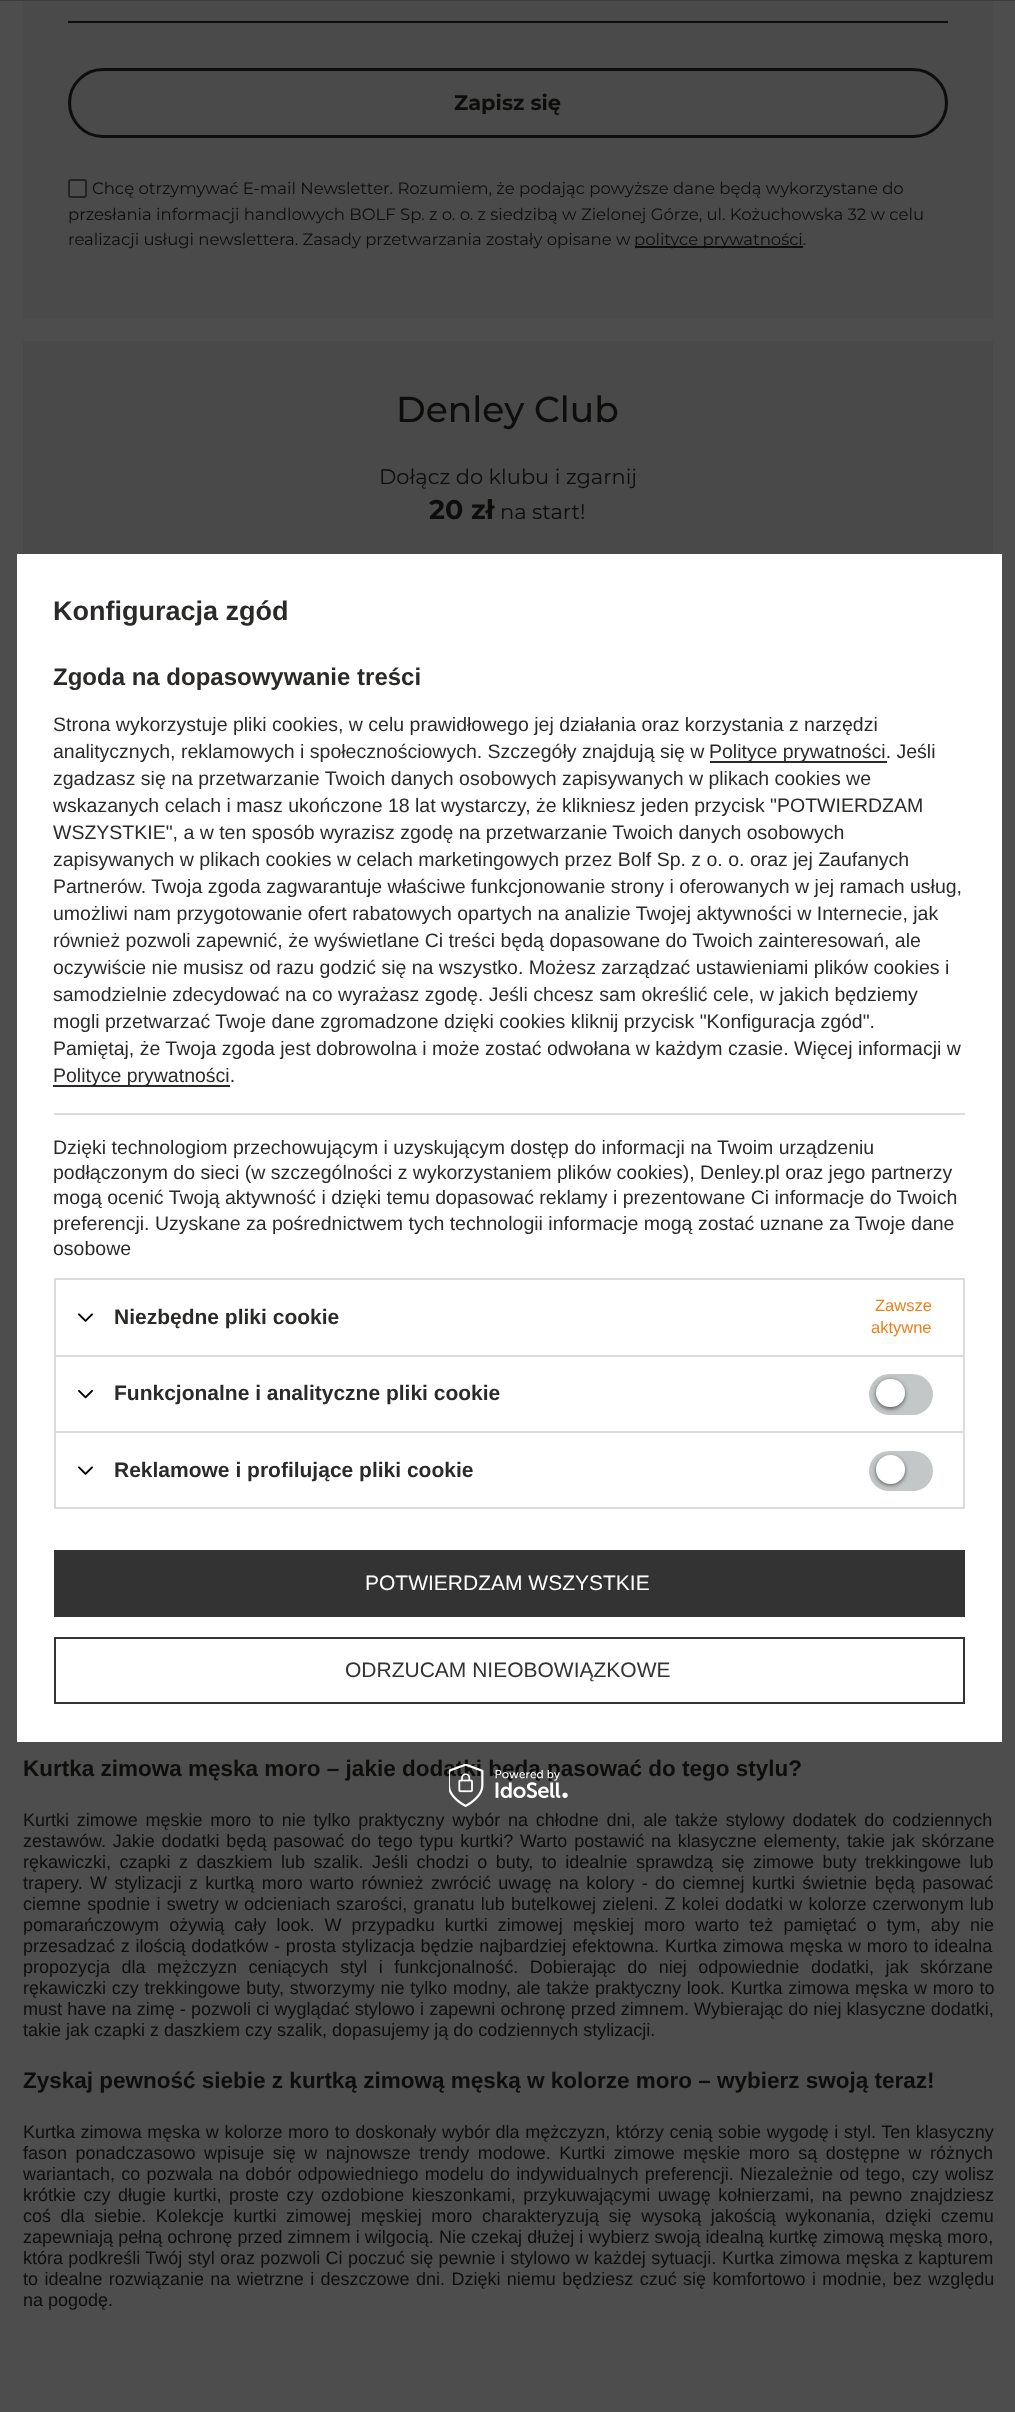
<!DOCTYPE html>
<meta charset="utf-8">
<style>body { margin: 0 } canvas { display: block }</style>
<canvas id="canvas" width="1015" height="2412"></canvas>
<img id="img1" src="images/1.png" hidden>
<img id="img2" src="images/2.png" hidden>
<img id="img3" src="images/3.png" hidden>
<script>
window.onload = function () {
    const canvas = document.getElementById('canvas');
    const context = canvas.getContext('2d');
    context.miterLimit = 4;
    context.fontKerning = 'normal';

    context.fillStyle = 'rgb(77, 77, 77)';
    context.fillRect(0, 0, 1015, 2412);
    context.fillStyle = 'rgb(59, 60, 60)';
    context.fillRect(0, 0, 1015, 1);
    context.fillStyle = 'rgb(74, 74, 74)';
    context.fillRect(23, 1, 970, 317);
    context.fillStyle = 'rgb(13, 13, 12)';
    context.fillRect(68, 21, 880, 2);
    context.beginPath();
    context.roundRect(69.5, 69.5, 877, 67, 33.5);
    context.strokeStyle = 'rgb(13, 13, 12)';
    context.lineWidth = 3;
    context.stroke();
    context.fillStyle = 'rgb(77, 77, 77)';
    context.beginPath();
    context.roundRect(69, 180, 17, 17, 2);
    context.fill();
    context.strokeStyle = 'rgb(35, 35, 35)';
    context.lineWidth = 2;
    context.stroke();
    context.fillStyle = 'rgb(13, 13, 12)';
    context.fillRect(635, 246, 168, 2);
    context.fillStyle = 'rgb(73, 73, 73)';
    context.fillRect(23, 341, 970, 213);
    context.fillStyle = 'rgb(255, 255, 255)';
    context.fillRect(17, 554, 985, 1188);
    context.fillStyle = 'rgb(43, 42, 41)';
    context.fillRect(710, 761, 177, 2);
    context.fillRect(53, 1085, 177, 2);
    context.fillStyle = 'rgb(219, 219, 219)';
    context.fillRect(54, 1113, 911, 2);
    context.fillRect(54, 1278, 911, 2);
    context.fillRect(963, 1278, 2, 77);
    context.fillRect(54, 1278, 2, 77);
    context.drawImage(document.getElementById('img1'), 78, 1313, 15, 9);
    context.fillRect(54, 1355, 911, 2);
    context.fillRect(963, 1355, 2, 76);
    context.fillRect(54, 1355, 2, 76);
    context.drawImage(document.getElementById('img2'), 78, 1389, 15, 10);
    context.fillStyle = 'rgb(196, 199, 200)';
    context.beginPath();
    context.roundRect(869, 1374, 64, 41, 20.5);
    context.fill();
    context.fillStyle = 'rgba(0, 0, 0, 0.56)';
    context.filter = 'blur(2px)';
    context.beginPath();
    context.roundRect(876, 1380, 29, 29, 14.5);
    context.fill();
    context.filter = 'none';
    context.fillStyle = 'rgb(255, 255, 255)';
    context.beginPath();
    context.roundRect(876, 1379, 29, 28, 14);
    context.fill();
    context.strokeStyle = 'rgb(219, 219, 219)';
    context.strokeRect(55, 1432, 909, 76);
    context.drawImage(document.getElementById('img1'), 78, 1466, 15, 9);
    context.fillStyle = 'rgb(196, 199, 200)';
    context.beginPath();
    context.roundRect(869, 1451, 64, 40, 20);
    context.fill();
    context.fillStyle = 'rgba(0, 0, 0, 0.56)';
    context.filter = 'blur(2px)';
    context.beginPath();
    context.roundRect(876, 1457, 29, 28, 14);
    context.fill();
    context.filter = 'none';
    context.fillStyle = 'rgb(255, 255, 255)';
    context.beginPath();
    context.arc(890.5, 1469.5, 14.5, 0, 2 * Math.PI);
    context.fill();
    context.fillStyle = 'rgb(51, 51, 51)';
    context.fillRect(54, 1550, 911, 67);
    context.strokeStyle = 'rgb(51, 51, 51)';
    context.strokeRect(55, 1638, 909, 65);
    context.font = 'bold 21px Montserrat';
    context.fillStyle = 'rgb(13, 13, 12)';
    context.fillText('Zapisz się', 454, 110);
    context.font = '16.5px Montserrat';
    context.fillText('Chcę otrzymywać E-mail Newsletter. Rozumiem, że podając powyższe dane będą wykorzystane do', 92, 194);
    context.fillText('przesłania informacji handlowych BOLF Sp. z o. o. z siedzibą w Zielonej Górze, ul. Kożuchowska 32 w celu', 68, 220);
    context.fillText('realizacji usługi newslettera. Zasady przetwarzania zostały opisane w', 68, 245);
    context.fillText('polityce prywatności.', 634, 245);
    context.font = '500 36px Montserrat';
    context.fillText('Denley Club', 396, 422);
    context.font = '21px Montserrat';
    context.fillText('Dołącz do klubu i zgarnij', 379, 484);
    context.font = 'bold 27px Montserrat';
    context.fillText('20 zł', 429, 519);
    context.font = '21px Montserrat';
    context.fillText('na start!', 500, 519);
    context.font = 'bold 22.5px Liberation Sans';
    context.fillText('Kurtka zimowa męska moro – jakie dodatki będą pasować do tego stylu?', 23, 1776);
    context.wordSpacing = '2.75px';
    context.font = '18px Liberation Sans';
    context.fillText('Kurtki zimowe męskie moro to nie tylko praktyczny wybór na chłodne dni, ale także stylowy dodatek do codziennych', 23, 1826);
    context.wordSpacing = '1.75px';
    context.fillText('zestawów. Jakie dodatki będą pasować do tego typu kurtki? Warto postawić na klasyczne elementy, takie jak skórzane', 23, 1847);
    context.wordSpacing = '3.5px';
    context.fillText('rękawiczki, czapki z daszkiem lub szalik. Jeśli chodzi o buty, to idealnie sprawdzą się zimowe buty trekkingowe lub', 23, 1868);
    context.wordSpacing = '2.4px';
    context.fillText('trapery. W stylizacji z kurtką moro warto również zwrócić uwagę na kolory - do ciemnej kurtki świetnie będą pasować', 23, 1889);
    context.wordSpacing = '1.2px';
    context.fillText('ciemne spodnie i swetry w odcieniach szarości, granatu lub butelkowej zieleni. Z kolei dodatki w kolorze czerwonym lub', 23, 1910);
    context.wordSpacing = '5.1px';
    context.fillText('pomarańczowym ożywią cały look. W przypadku kurtki zimowej męskiej moro warto też pamiętać o tym, aby nie', 23, 1931);
    context.wordSpacing = '0.75px';
    context.fillText('przesadzać z ilością dodatków - prosta stylizacja będzie najbardziej efektowna.', 23, 1952);
    context.fillText('Kurtka zimowa męska', 665, 1952);
    context.fillText('w moro to idealna', 848, 1952);
    context.wordSpacing = '6.5px';
    context.fillText('propozycja dla mężczyzn ceniących styl i funkcjonalność. Dobierając do niej odpowiednie dodatki, jak skórzane', 23, 1973);
    context.wordSpacing = '0.75px';
    context.fillText('rękawiczki czy trekkingowe buty, stworzymy nie tylko modny, ale także praktyczny look. Kurtka zimowa męska w moro to', 23, 1994);
    context.wordSpacing = '0.2px';
    context.fillText('must have na zimę - pozwoli ci wyglądać stylowo i zapewni ochronę przed zimnem. Wybierając do niej klasyczne dodatki,', 23, 2015);
    context.wordSpacing = '0px';
    context.fillText('takie jak czapki z daszkiem czy szalik, dopasujemy ją do codziennych stylizacji.', 23, 2036);
    context.font = 'bold 22.5px Liberation Sans';
    context.fillText('Zyskaj pewność siebie z kurtką zimową męską w kolorze moro – wybierz swoją teraz!', 23, 2088);
    context.wordSpacing = '0.6px';
    context.font = '18px Liberation Sans';
    context.fillText('Kurtka zimowa męska w kolorze moro to doskonały wybór dla mężczyzn, którzy cenią sobie wygodę i styl. Ten klasyczny', 23, 2138);
    context.wordSpacing = '3.5px';
    context.fillText('fason ponadczasowo wpisuje się w najnowsze trendy modowe. Kurtki zimowe męskie moro są dostępne w różnych', 23, 2159);
    context.wordSpacing = '1.25px';
    context.fillText('wariantach, co pozwala na dobór odpowiedniego modelu do indywidualnych preferencji. Niezależnie od tego, czy wolisz', 23, 2180);
    context.wordSpacing = '2.5px';
    context.fillText('krótkie czy długie kurtki, proste czy ozdobione kieszonkami, przykuwającymi uwagę kołnierzami, na pewno znajdziesz', 23, 2201);
    context.wordSpacing = '4.6px';
    context.fillText('coś dla siebie. Kolekcje kurtki zimowej męskiej moro charakteryzują się wysoką jakością wykonania, dzięki czemu', 23, 2222);
    context.wordSpacing = '0.1px';
    context.fillText('zapewniają pełną ochronę przed zimnem i wilgocią. Nie czekaj dłużej i wybierz swoją idealną kurtkę zimową męską moro,', 23, 2243);
    context.wordSpacing = '0.3px';
    context.fillText('która podkreśli Twój styl oraz pozwoli Ci poczuć się pewnie i stylowo w każdej sytuacji.', 23, 2264);
    context.fillText('Kurtka zimowa męska z kapturem', 722, 2264);
    context.wordSpacing = '1.4px';
    context.fillText('to idealne rozwiązanie na wietrzne i deszczowe dni. Dzięki niemu będziesz czuć się komfortowo i modnie, bez względu', 23, 2285);
    context.wordSpacing = '0px';
    context.fillText('na pogodę.', 23, 2306);
    context.font = 'bold 27px Liberation Sans';
    context.fillStyle = 'rgb(43, 42, 41)';
    context.fillText('Konfiguracja zgód', 53, 620);
    context.font = 'bold 24px Liberation Sans';
    context.fillText('Zgoda na dopasowywanie treści', 53, 685);
    context.font = '19.5px Liberation Sans';
    context.fillText('Strona wykorzystuje pliki cookies, w celu prawidłowego jej działania oraz korzystania z narzędzi', 53, 731);
    context.fillText('analitycznych, reklamowych i społecznościowych. Szczegóły znajdują się w', 53, 758);
    context.fillText('Polityce prywatności. Jeśli', 709, 758);
    context.fillText('zgadzasz się na przetwarzanie Twoich danych osobowych zapisywanych w plikach cookies we', 53, 785);
    context.fillText('wskazanych celach i masz ukończone 18 lat wystarczy, że klikniesz jeden przycisk "POTWIERDZAM', 53, 812);
    context.fillText('WSZYSTKIE", a w ten sposób wyrazisz zgodę na przetwarzanie Twoich danych osobowych', 53, 839);
    context.fillText('zapisywanych w plikach cookies w celach marketingowych przez Bolf Sp. z o. o. oraz jej Zaufanych', 53, 866);
    context.fillText('Partnerów. Twoja zgoda zagwarantuje właściwe funkcjonowanie strony i oferowanych w jej ramach usług,', 53, 893);
    context.fillText('umożliwi nam przygotowanie ofert rabatowych opartych na analizie Twojej aktywności w Internecie, jak', 53, 920);
    context.fillText('również pozwoli zapewnić, że wyświetlane Ci treści będą dopasowane do Twoich zainteresowań, ale', 53, 947);
    context.fillText('oczywiście nie musisz od razu godzić się na wszystko. Możesz zarządzać ustawieniami plików cookies i', 53, 974);
    context.fillText('samodzielnie zdecydować na co wyrażasz zgodę. Jeśli chcesz sam określić cele, w jakich będziemy', 53, 1001);
    context.fillText('mogli przetwarzać Twoje dane zgromadzone dzięki cookies kliknij przycisk "Konfiguracja zgód".', 53, 1028);
    context.fillText('Pamiętaj, że Twoja zgoda jest dobrowolna i może zostać odwołana w każdym czasie. Więcej informacji w', 53, 1055);
    context.fillText('Polityce prywatności.', 53, 1082);
    context.fillText('Dzięki technologiom przechowującym i uzyskującym dostęp do informacji na Twoim urządzeniu', 53, 1154);
    context.fillText('podłączonym do sieci (w szczególności z wykorzystaniem plików cookies), Denley.pl oraz jego partnerzy', 53, 1179);
    context.fillText('mogą ocenić Twoją aktywność i dzięki temu dopasować reklamy i prezentowane Ci informacje do Twoich', 53, 1204);
    context.fillText('preferencji. Uzyskane za pośrednictwem tych technologii informacje mogą zostać uznane za Twoje dane', 53, 1230);
    context.fillText('osobowe', 53, 1255);
    context.font = 'bold 21px Liberation Sans';
    context.fillText('Niezbędne pliki cookie', 114, 1324);
    context.font = '16.5px Liberation Sans';
    context.fillStyle = 'rgb(239, 127, 26)';
    context.fillText('Zawsze', 875, 1311);
    context.fillText('aktywne', 871, 1333);
    context.font = 'bold 21px Liberation Sans';
    context.fillStyle = 'rgb(43, 42, 41)';
    context.fillText('Funkcjonalne i analityczne pliki cookie', 114, 1400);
    context.fillText('Reklamowe i profilujące pliki cookie', 114, 1477);
    context.font = '21px Liberation Sans';
    context.fillStyle = 'rgb(255, 255, 255)';
    context.fillText('POTWIERDZAM WSZYSTKIE', 365, 1590);
    context.fillStyle = 'rgb(51, 51, 51)';
    context.fillText('ODRZUCAM NIEOBOWIĄZKOWE', 345, 1677);
    context.drawImage(document.getElementById('img3'), 449, 1764, 119, 43);
};
</script>
